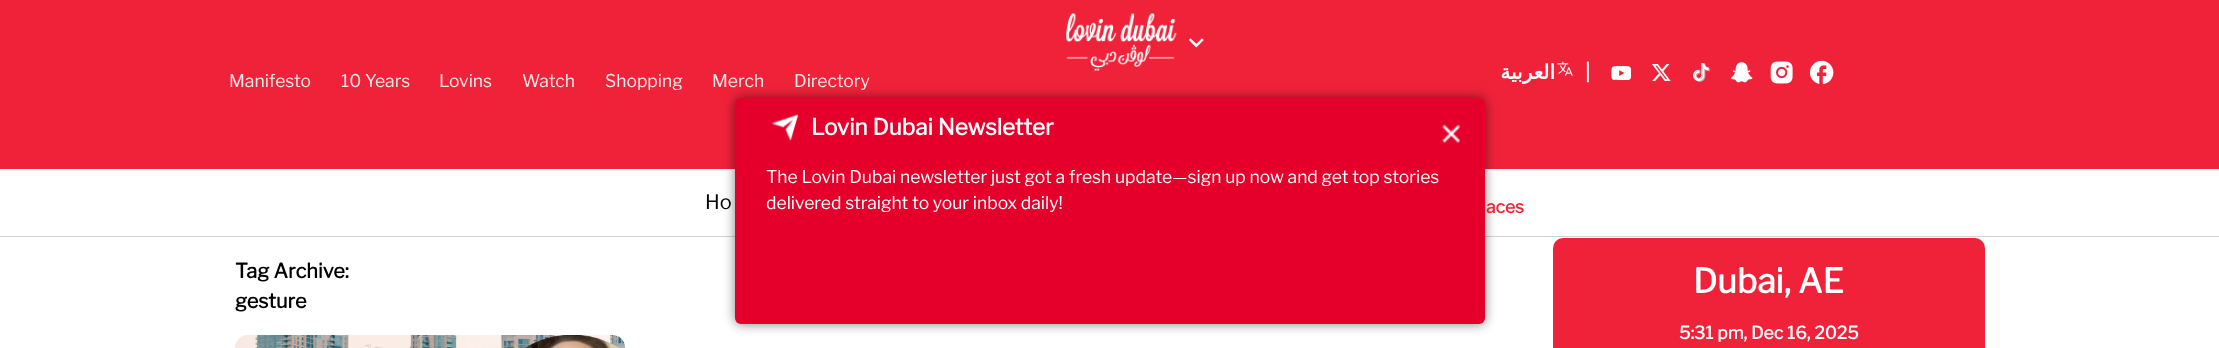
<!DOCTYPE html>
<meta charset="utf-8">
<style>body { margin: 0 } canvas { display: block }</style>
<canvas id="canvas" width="2219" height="348"></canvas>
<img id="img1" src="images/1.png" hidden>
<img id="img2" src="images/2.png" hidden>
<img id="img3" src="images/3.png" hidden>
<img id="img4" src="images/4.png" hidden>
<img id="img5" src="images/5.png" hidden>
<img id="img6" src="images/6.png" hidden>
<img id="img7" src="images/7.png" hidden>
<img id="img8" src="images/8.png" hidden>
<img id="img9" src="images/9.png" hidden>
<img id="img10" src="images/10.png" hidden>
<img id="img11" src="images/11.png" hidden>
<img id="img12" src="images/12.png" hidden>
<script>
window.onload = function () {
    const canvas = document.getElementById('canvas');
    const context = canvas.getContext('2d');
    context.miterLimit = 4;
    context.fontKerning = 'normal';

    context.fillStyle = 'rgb(255, 255, 255)';
    context.fillRect(0, 0, 2219, 348);
    context.fillStyle = 'rgb(240, 34, 58)';
    context.fillRect(0, 0, 2219, 169);
    context.drawImage(document.getElementById('img1'), 1066, 13, 111, 58);
    context.drawImage(document.getElementById('img2'), 1189, 38, 15, 10);
    context.drawImage(document.getElementById('img3'), 1557, 61, 16, 15);
    context.drawImage(document.getElementById('img4'), 1611, 66, 21, 15);
    context.drawImage(document.getElementById('img5'), 1652, 64, 19, 17);
    context.drawImage(document.getElementById('img6'), 1693, 63, 17, 19);
    context.drawImage(document.getElementById('img7'), 1730, 62, 23, 21);
    context.drawImage(document.getElementById('img8'), 1770, 61, 23, 23);
    context.drawImage(document.getElementById('img9'), 1809, 60, 25, 25);
    context.fillStyle = 'rgb(211, 211, 211)';
    context.fillRect(0, 236, 2219, 1);
    context.fillStyle = 'rgba(0, 0, 0, 0.5)';
    context.filter = 'blur(6px)';
    context.beginPath();
    context.roundRect(735, 98, 750, 226, 6);
    context.fill();
    context.filter = 'none';
    context.fillStyle = 'rgb(229, 0, 44)';
    context.beginPath();
    context.roundRect(735, 98, 750, 226, 6);
    context.fill();
    context.drawImage(document.getElementById('img10'), 772, 114, 26, 27);
    context.drawImage(document.getElementById('img11'), 1442, 124, 18, 19);
    context.drawImage(document.getElementById('img12'), 235, 335, 390, 13);
    context.fillStyle = 'rgb(240, 34, 58)';
    context.beginPath();
    context.roundRect(1553, 238, 432, 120, 10);
    context.fill();
    context.font = '100 17.5px Libre Franklin';
    context.fillStyle = 'rgb(254, 233, 235)';
    context.fillText('Manifesto', 229, 87);
    context.fillText('10 Years', 341, 87);
    context.fillText('Lovins', 439, 87);
    context.fillText('Watch', 522, 87);
    context.fillText('Shopping', 605, 87);
    context.fillText('Merch', 712, 87);
    context.fillText('Directory', 794, 87);
    context.direction = 'rtl';
    context.font = 'bold 20px DejaVu Sans';
    context.fillStyle = 'rgb(255, 255, 255)';
    context.fillText('العربية', 1555, 79);
    context.direction = 'ltr';
    context.font = 'bold 20px Libre Franklin';
    context.fillText('|', 1585, 79);
    context.font = 'bold 22.5px Libre Franklin';
    context.fillText('Lovin Dubai Newsletter', 811, 135);
    context.font = '100 17.5px Libre Franklin';
    context.fillText('The Lovin Dubai newsletter just got a fresh update—sign up now and get top stories', 766, 183);
    context.fillText('delivered straight to your inbox daily!', 766, 209);
    context.font = '100 20px Libre Franklin';
    context.fillStyle = 'rgb(0, 0, 0)';
    context.fillText('Ho', 705, 209);
    context.font = 'bold 17.5px Libre Franklin';
    context.fillStyle = 'rgb(240, 34, 58)';
    context.fillText('aces', 1486, 213);
    context.font = 'bold 20px Libre Franklin';
    context.fillStyle = 'rgb(0, 0, 0)';
    context.fillText('Tag Archive:', 235, 278);
    context.fillText('gesture', 235, 308);
    context.font = 'bold 33.75px Libre Franklin';
    context.fillStyle = 'rgb(255, 255, 255)';
    context.fillText('Dubai, AE', 1693, 293);
    context.font = 'bold 17.5px Libre Franklin';
    context.fillText('5:31 pm, Dec 16, 2025', 1679, 339);
};
</script>
